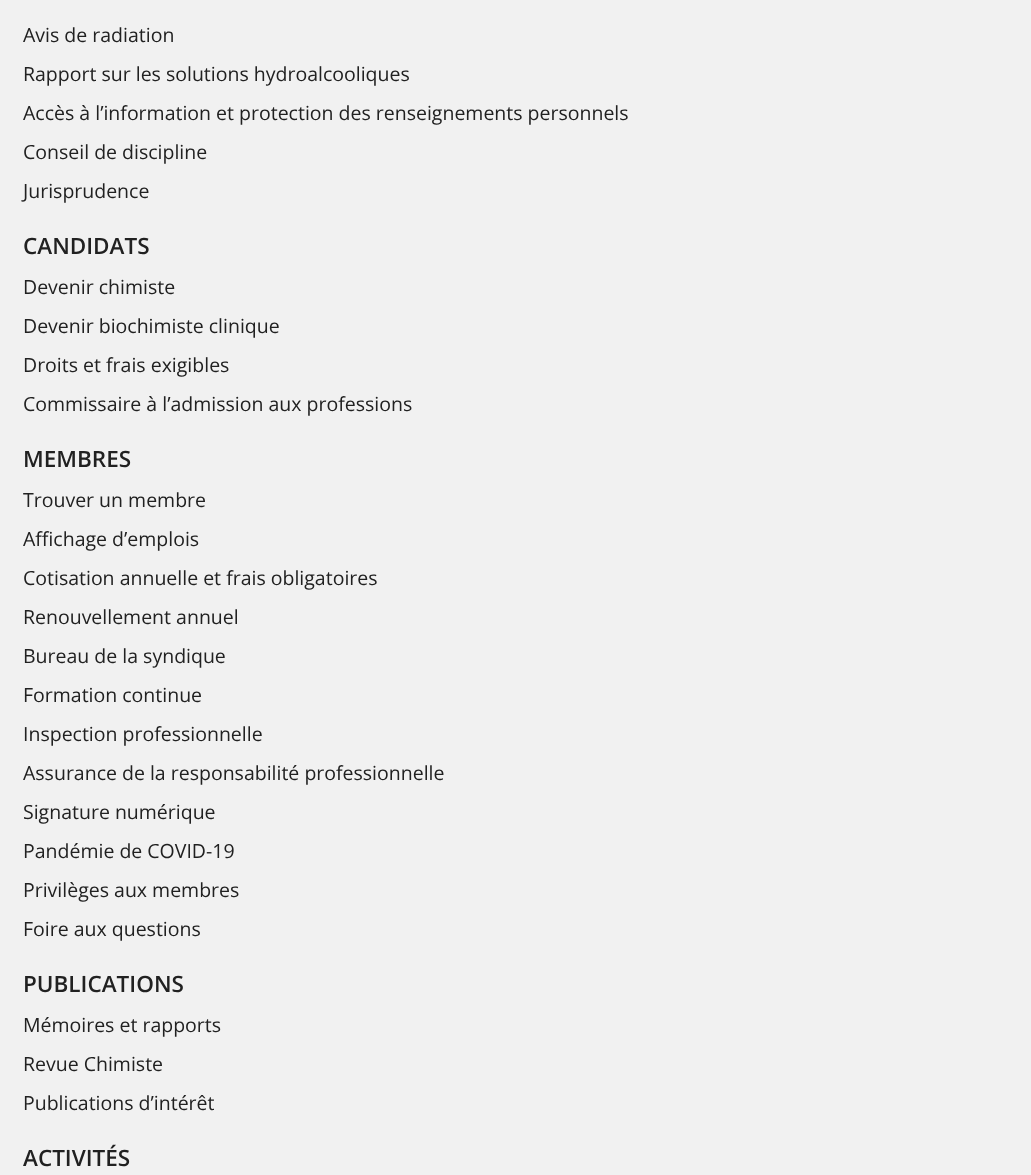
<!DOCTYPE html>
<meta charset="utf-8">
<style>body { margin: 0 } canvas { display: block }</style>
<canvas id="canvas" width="1031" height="1175"></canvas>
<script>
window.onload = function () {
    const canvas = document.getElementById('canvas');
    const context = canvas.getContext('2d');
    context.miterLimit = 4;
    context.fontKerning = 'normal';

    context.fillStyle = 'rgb(241, 241, 241)';
    context.fillRect(0, 0, 1031, 1175);
    context.font = '19.5px Open Sans';
    context.fillStyle = 'rgb(33, 33, 33)';
    context.fillText('Avis de radiation', 23, 42);
    context.fillText('Rapport sur les solutions hydroalcooliques', 23, 81);
    context.fillText('Accès à l’information et protection des renseignements personnels', 23, 120);
    context.fillText('Conseil de discipline', 23, 159);
    context.fillText('Jurisprudence', 23, 198);
    context.font = '600 22.5px Open Sans';
    context.fillText('CANDIDATS', 23, 254);
    context.font = '19.5px Open Sans';
    context.fillText('Devenir chimiste', 23, 294);
    context.fillText('Devenir biochimiste clinique', 23, 333);
    context.fillText('Droits et frais exigibles', 23, 372);
    context.fillText('Commissaire à l’admission aux professions', 23, 411);
    context.font = '600 22.5px Open Sans';
    context.fillText('MEMBRES', 23, 467);
    context.font = '19.5px Open Sans';
    context.fillText('Trouver un membre', 23, 507);
    context.fillText('Affichage d’emplois', 23, 546);
    context.fillText('Cotisation annuelle et frais obligatoires', 23, 585);
    context.fillText('Renouvellement annuel', 23, 624);
    context.fillText('Bureau de la syndique', 23, 663);
    context.fillText('Formation continue', 23, 702);
    context.fillText('Inspection professionnelle', 23, 741);
    context.fillText('Assurance de la responsabilité professionnelle', 23, 780);
    context.fillText('Signature numérique', 23, 819);
    context.fillText('Pandémie de COVID-19', 23, 858);
    context.fillText('Privilèges aux membres', 23, 897);
    context.fillText('Foire aux questions', 23, 936);
    context.font = '600 22.5px Open Sans';
    context.fillText('PUBLICATIONS', 23, 992);
    context.font = '19.5px Open Sans';
    context.fillText('Mémoires et rapports', 23, 1032);
    context.fillText('Revue Chimiste', 23, 1071);
    context.fillText('Publications d’intérêt', 23, 1110);
    context.font = '600 22.5px Open Sans';
    context.fillText('ACTIVITÉS', 23, 1166);
};
</script>
